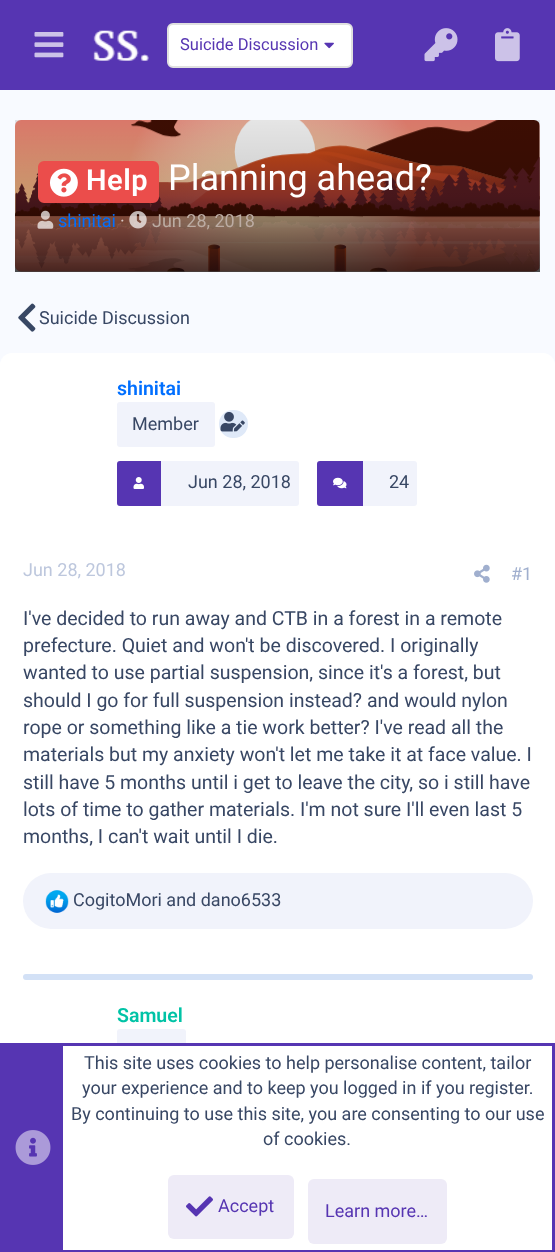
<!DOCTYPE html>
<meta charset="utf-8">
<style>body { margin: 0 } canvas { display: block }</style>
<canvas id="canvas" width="555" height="1252"></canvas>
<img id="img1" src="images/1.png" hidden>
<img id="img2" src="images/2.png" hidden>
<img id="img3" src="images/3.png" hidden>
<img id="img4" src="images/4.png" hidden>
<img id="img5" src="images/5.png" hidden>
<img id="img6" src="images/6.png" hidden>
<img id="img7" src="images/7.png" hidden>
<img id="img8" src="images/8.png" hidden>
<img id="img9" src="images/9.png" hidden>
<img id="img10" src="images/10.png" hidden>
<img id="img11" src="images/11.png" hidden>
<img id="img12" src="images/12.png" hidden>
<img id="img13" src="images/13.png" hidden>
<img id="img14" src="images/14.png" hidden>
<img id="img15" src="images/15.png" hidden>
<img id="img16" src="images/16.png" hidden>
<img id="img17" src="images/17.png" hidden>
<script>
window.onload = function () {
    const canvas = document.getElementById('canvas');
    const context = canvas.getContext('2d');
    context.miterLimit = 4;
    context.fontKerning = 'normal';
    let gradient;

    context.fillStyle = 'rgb(248, 250, 255)';
    context.fillRect(0, 0, 555, 1252);
    context.fillStyle = 'rgb(86, 53, 178)';
    context.fillRect(0, 0, 555, 90);
    context.drawImage(document.getElementById('img1'), 34, 32, 30, 26);
    context.drawImage(document.getElementById('img2'), 93, 30, 56, 31);
    context.fillStyle = 'rgb(255, 255, 255)';
    context.beginPath();
    context.roundRect(168, 24, 184, 43, 5);
    context.fill();
    context.strokeStyle = 'rgb(224, 224, 224)';
    context.lineWidth = 2;
    context.stroke();
    context.drawImage(document.getElementById('img3'), 324, 42, 10, 7);
    context.drawImage(document.getElementById('img4'), 424, 28, 34, 34);
    context.drawImage(document.getElementById('img5'), 495, 28, 25, 34);
    context.drawImage(document.getElementById('img6'), 15, 120, 525, 152);
    gradient = context.createLinearGradient(278, 120, 278, 272);
    gradient.addColorStop(0, 'rgba(0, 0, 0, 0.1)');
    gradient.addColorStop(0.5, 'rgba(0, 0, 0, 0.2)');
    gradient.addColorStop(1, 'rgba(0, 0, 0, 0.7)');
    context.fillStyle = gradient;
    context.fillRect(15, 120, 525, 152);
    context.fillStyle = 'rgb(235, 77, 75)';
    context.beginPath();
    context.roundRect(39, 162, 119, 40, 5);
    context.fill();
    context.strokeStyle = 'rgb(235, 77, 75)';
    context.stroke();
    context.drawImage(document.getElementById('img7'), 49, 168, 29, 29);
    context.drawImage(document.getElementById('img8'), 37, 210, 17, 19);
    context.drawImage(document.getElementById('img9'), 129, 211, 18, 18);
    context.drawImage(document.getElementById('img10'), 18, 303, 18, 29);
    context.fillStyle = 'rgb(255, 255, 255)';
    context.beginPath();
    context.roundRect(0, 353, 555, 627, [12, 12, 0, 0]);
    context.fill();
    context.fillStyle = 'rgb(241, 243, 251)';
    context.beginPath();
    context.roundRect(117, 402, 98, 45, 3);
    context.fill();
    context.fillStyle = 'rgb(223, 233, 248)';
    context.beginPath();
    context.roundRect(219, 410, 29, 28, 14);
    context.fill();
    context.drawImage(document.getElementById('img11'), 220, 412, 25, 20);
    context.fillStyle = 'rgb(241, 243, 251)';
    context.beginPath();
    context.roundRect(117, 461, 182, 45, 3);
    context.fill();
    context.fillStyle = 'rgb(86, 53, 178)';
    context.beginPath();
    context.roundRect(117, 461, 44, 45, [3, 0, 0, 3]);
    context.fill();
    context.drawImage(document.getElementById('img12'), 133, 477, 11, 12);
    context.fillStyle = 'rgb(241, 243, 251)';
    context.beginPath();
    context.roundRect(317, 461, 100, 45, 3);
    context.fill();
    context.fillStyle = 'rgb(86, 53, 178)';
    context.beginPath();
    context.roundRect(317, 461, 46, 45, [3, 0, 0, 3]);
    context.fill();
    context.drawImage(document.getElementById('img13'), 333, 477, 14, 12);
    context.drawImage(document.getElementById('img14'), 474, 564, 16, 19);
    context.fillStyle = 'rgb(241, 243, 251)';
    context.beginPath();
    context.roundRect(23, 873, 510, 56, 28);
    context.fill();
    context.drawImage(document.getElementById('img15'), 45, 890, 24, 23);
    context.fillStyle = 'rgb(211, 225, 246)';
    context.beginPath();
    context.roundRect(23, 974, 510, 6, 3);
    context.fill();
    context.fillStyle = 'rgb(255, 255, 255)';
    context.fillRect(0, 980, 555, 63);
    context.fillStyle = 'rgb(241, 243, 251)';
    context.beginPath();
    context.roundRect(117, 1029, 69, 45, 3);
    context.fill();
    context.fillStyle = 'rgb(255, 255, 255)';
    context.fillRect(63, 1046, 489, 204);
    context.strokeStyle = 'rgb(86, 53, 178)';
    context.lineWidth = 3;
    context.strokeRect(1.5, 1044.5, 552, 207);
    context.fillStyle = 'rgb(86, 53, 178)';
    context.fillRect(3, 1046, 60, 204);
    context.drawImage(document.getElementById('img16'), 15, 1130, 36, 35);
    context.fillStyle = 'rgb(238, 235, 247)';
    context.beginPath();
    context.roundRect(168, 1175, 126, 64, 6);
    context.fill();
    context.drawImage(document.getElementById('img17'), 186, 1196, 27, 21);
    context.beginPath();
    context.roundRect(308, 1179, 139, 65, 6);
    context.fill();
    context.font = '16.5px Roboto';
    context.fillStyle = 'rgb(86, 53, 178)';
    context.fillText('Suicide Discussion', 180, 50);
    context.letterSpacing = '0.5px';
    context.font = '600 29px Roboto';
    context.fillStyle = 'rgb(255, 255, 255)';
    context.fillText('Help', 86, 190);
    context.letterSpacing = '0px';
    context.font = '36px Roboto';
    context.fillText('Planning ahead?', 168, 190);
    context.font = '18px Roboto';
    context.fillStyle = 'rgb(0, 111, 255)';
    context.fillText('shinitai', 58, 227);
    context.fillStyle = 'rgb(215, 199, 195)';
    context.fillText('·', 120, 227);
    context.fillStyle = 'rgb(188, 172, 163)';
    context.fillText('Jun 28, 2018', 152, 227);
    context.fillStyle = 'rgb(56, 71, 100)';
    context.fillText('Suicide Discussion', 39, 324);
    context.font = '600 19.5px Roboto';
    context.fillStyle = 'rgb(0, 111, 255)';
    context.fillText('shinitai', 117, 395);
    context.font = '18px Roboto';
    context.fillStyle = 'rgb(56, 71, 100)';
    context.fillText('Member', 132, 430);
    context.fillText('Jun 28, 2018', 188, 488);
    context.fillText('24', 389, 488);
    context.fillStyle = 'rgb(189, 199, 221)';
    context.fillText('Jun 28, 2018', 23, 576);
    context.fillStyle = 'rgb(160, 175, 206)';
    context.fillText('#1', 511, 580);
    context.font = '19.5px Roboto';
    context.fillStyle = 'rgb(56, 71, 100)';
    context.fillText('I\'ve decided to run away and CTB in a forest in a remote', 23, 625);
    context.fillText('prefecture. Quiet and won\'t be discovered. I originally', 23, 652);
    context.fillText('wanted to use partial suspension, since it\'s a forest, but', 23, 679);
    context.fillText('should I go for full suspension instead? and would nylon', 23, 707);
    context.fillText('rope or something like a tie work better? I\'ve read all the', 23, 734);
    context.fillText('materials but my anxiety won\'t let me take it at face value. I', 23, 761);
    context.fillText('still have 5 months until i get to leave the city, so i still have', 23, 789);
    context.fillText('lots of time to gather materials. I\'m not sure I\'ll even last 5', 23, 816);
    context.fillText('months, I can\'t wait until I die.', 23, 843);
    context.font = '18px Roboto';
    context.fillText('CogitoMori and dano6533', 73, 906);
    context.font = '600 19.5px Roboto';
    context.fillStyle = 'rgb(0, 195, 166)';
    context.fillText('Samuel', 117, 1022);
    context.font = '18px Roboto';
    context.fillStyle = 'rgb(56, 71, 100)';
    context.fillText('This site uses cookies to help personalise content, tailor', 84, 1069);
    context.fillText('your experience and to keep you logged in if you register.', 82, 1094);
    context.fillText('By continuing to use this site, you are consenting to our use', 71, 1120);
    context.fillText('of cookies.', 263, 1145);
    context.fillStyle = 'rgb(86, 53, 178)';
    context.fillText('Accept', 218, 1212);
    context.fillText('Learn more…', 325, 1217);
};
</script>
